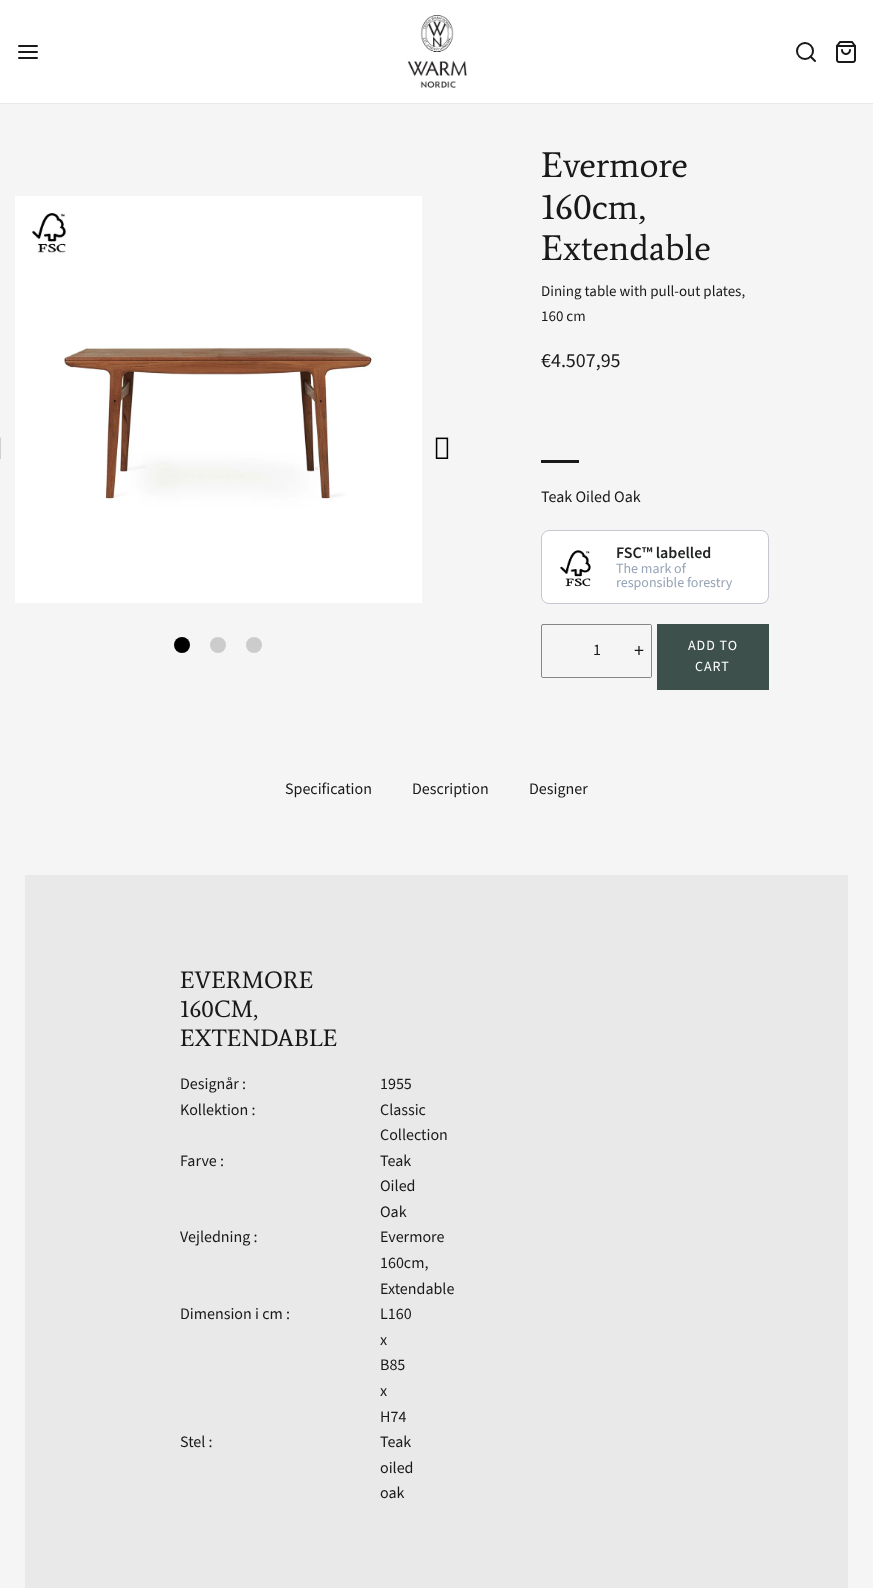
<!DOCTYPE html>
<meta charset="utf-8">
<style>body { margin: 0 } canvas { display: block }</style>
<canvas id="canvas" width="873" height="1588"></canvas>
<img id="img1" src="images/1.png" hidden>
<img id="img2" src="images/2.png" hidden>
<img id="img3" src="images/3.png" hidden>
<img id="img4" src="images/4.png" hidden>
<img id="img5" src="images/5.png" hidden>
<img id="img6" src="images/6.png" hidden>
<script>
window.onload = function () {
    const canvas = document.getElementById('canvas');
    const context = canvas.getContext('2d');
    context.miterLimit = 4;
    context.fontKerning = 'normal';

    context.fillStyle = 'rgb(245, 245, 245)';
    context.fillRect(0, 0, 873, 1588);
    context.fillStyle = 'rgb(255, 255, 255)';
    context.fillRect(0, 0, 873, 103);
    context.fillStyle = 'rgb(232, 232, 232)';
    context.fillRect(0, 103, 873, 1);
    context.beginPath();
    context.moveTo(19, 52);
    context.lineTo(37, 52);
    context.moveTo(19, 46);
    context.lineTo(37, 46);
    context.moveTo(19, 58);
    context.lineTo(37, 58);
    context.strokeStyle = 'rgb(25, 25, 25)';
    context.lineWidth = 2;
    context.lineCap = 'round';
    context.lineJoin = 'round';
    context.stroke();
    context.drawImage(document.getElementById('img1'), 407, 15, 60, 73);
    context.beginPath();
    context.arc(805, 51, 8, 0, 2 * Math.PI);
    context.stroke();
    context.beginPath();
    context.moveTo(815, 61);
    context.lineTo(810.5, 56.5);
    context.stroke();
    context.drawImage(document.getElementById('img2'), 836, 41, 20, 22);
    context.drawImage(document.getElementById('img3'), 0, 437, 1, 22);
    context.drawImage(document.getElementById('img4'), 15, 196, 407, 407);
    context.drawImage(document.getElementById('img5'), 435, 437, 14, 22);
    context.fillStyle = 'rgb(0, 0, 0)';
    context.beginPath();
    context.arc(182, 645, 8, 0, 2 * Math.PI);
    context.fill();
    context.fillStyle = 'rgb(204, 204, 204)';
    context.beginPath();
    context.arc(218, 645, 8, 0, 2 * Math.PI);
    context.fill();
    context.beginPath();
    context.arc(254, 645, 8, 0, 2 * Math.PI);
    context.fill();
    context.fillStyle = 'rgb(25, 25, 25)';
    context.fillRect(541, 460, 38, 3);
    context.fillStyle = 'rgb(255, 255, 255)';
    context.beginPath();
    context.roundRect(541.5, 530.5, 227, 73, 7.5);
    context.fill();
    context.strokeStyle = 'rgb(197, 200, 209)';
    context.lineWidth = 1;
    context.lineJoin = 'miter';
    context.stroke();
    context.drawImage(document.getElementById('img6'), 560, 550, 31, 37);
    context.beginPath();
    context.roundRect(541.5, 624.5, 110, 53, 1.5);
    context.strokeStyle = 'rgb(135, 135, 135)';
    context.stroke();
    context.fillStyle = 'rgb(245, 245, 245)';
    context.fillRect(650, 625, 1, 52);
    context.fillStyle = 'rgb(61, 80, 75)';
    context.fillRect(657, 624, 112, 66);
    context.fillStyle = 'rgb(233, 233, 233)';
    context.fillRect(25, 875, 823, 713);
    context.font = '36px Average';
    context.fillStyle = 'rgb(25, 25, 25)';
    context.fillText('Evermore', 541, 177);
    context.fillText('160cm,', 541, 219);
    context.fillText('Extendable', 541, 260);
    context.font = '15px Source Sans Pro';
    context.fillText('Dining table with pull-out plates,', 541, 296);
    context.fillText('160 cm', 541, 321);
    context.font = '20px Source Sans Pro';
    context.fillText('€4.507,95', 541, 367);
    context.font = '16px Source Sans Pro';
    context.fillText('Teak Oiled Oak', 541, 502);
    context.font = '600 16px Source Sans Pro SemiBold';
    context.fillStyle = 'rgb(32, 34, 35)';
    context.fillText('FSC™ labelled', 616, 558);
    context.font = '14px Source Sans Pro';
    context.fillStyle = 'rgb(150, 164, 182)';
    context.fillText('The mark of', 616, 573);
    context.fillText('responsible forestry', 616, 587);
    context.font = '16px Source Sans Pro';
    context.fillStyle = 'rgb(25, 25, 25)';
    context.fillText('1', 593, 655);
    context.font = '20px Source Sans Pro';
    context.fillText('+', 634, 657);
    context.letterSpacing = '1px';
    context.font = '14px Source Sans Pro';
    context.fillStyle = 'rgb(255, 255, 255)';
    context.fillText('ADD TO', 688, 650);
    context.fillText('CART', 695, 671);
    context.letterSpacing = '0px';
    context.font = '16px Source Sans Pro';
    context.fillStyle = 'rgb(25, 25, 25)';
    context.fillText('Specification', 285, 794);
    context.fillText('Description', 412, 794);
    context.fillText('Designer', 529, 794);
    context.font = '24px Average';
    context.fillText('EVERMORE', 180, 988);
    context.fillText('160CM,', 180, 1017);
    context.fillText('EXTENDABLE', 180, 1046);
    context.font = '16px Source Sans Pro';
    context.fillText('Designår :', 180, 1089);
    context.fillText('1955', 380, 1089);
    context.fillText('Kollektion :', 180, 1115);
    context.fillText('Classic', 380, 1115);
    context.fillText('Collection', 380, 1140);
    context.fillText('Farve :', 180, 1166);
    context.fillText('Teak', 380, 1166);
    context.fillText('Oiled', 380, 1191);
    context.fillText('Oak', 380, 1217);
    context.fillText('Vejledning :', 180, 1242);
    context.fillText('Evermore', 380, 1242);
    context.fillText('160cm,', 380, 1268);
    context.fillText('Extendable', 380, 1294);
    context.fillText('Dimension i cm :', 180, 1319);
    context.fillText('L160', 380, 1319);
    context.fillText('x', 380, 1345);
    context.fillText('B85', 380, 1370);
    context.fillText('x', 380, 1396);
    context.fillText('H74', 380, 1422);
    context.fillText('Stel :', 180, 1447);
    context.fillText('Teak', 380, 1447);
    context.fillText('oiled', 380, 1473);
    context.fillText('oak', 380, 1498);
};
</script>
